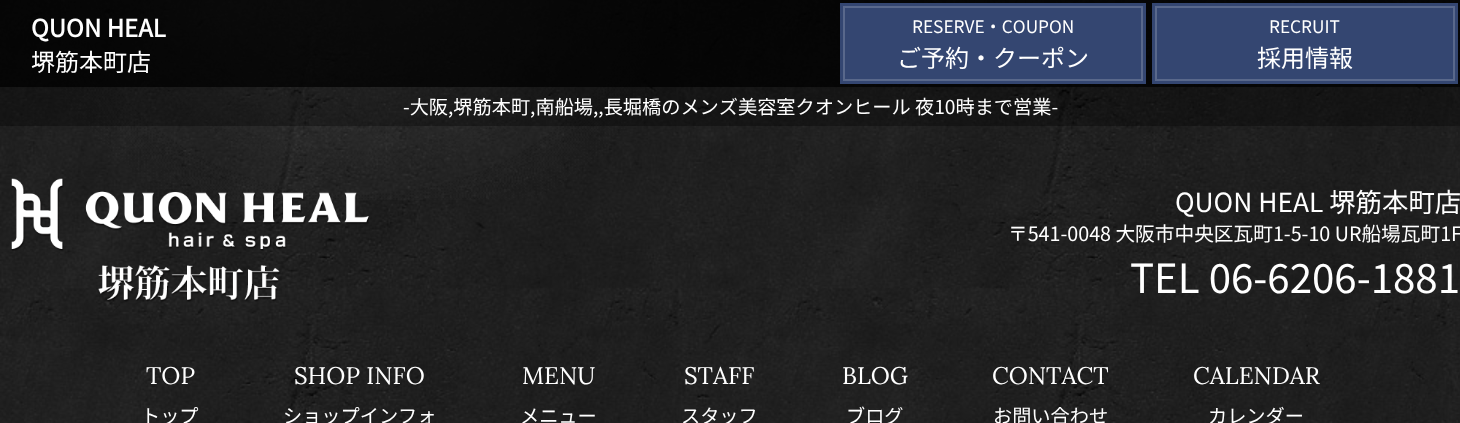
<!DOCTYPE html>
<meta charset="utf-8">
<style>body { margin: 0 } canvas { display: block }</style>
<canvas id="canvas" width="1460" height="423"></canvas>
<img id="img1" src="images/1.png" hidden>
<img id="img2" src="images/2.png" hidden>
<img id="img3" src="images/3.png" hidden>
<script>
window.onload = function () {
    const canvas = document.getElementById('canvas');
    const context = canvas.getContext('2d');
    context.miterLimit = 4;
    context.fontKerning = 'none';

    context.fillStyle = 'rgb(255, 255, 255)';
    context.fillRect(0, 0, 1460, 423);
    context.drawImage(document.getElementById('img1'), 0, 0, 1460, 423);
    context.drawImage(document.getElementById('img2'), 61, 0, 589, 200);
    context.fillStyle = 'rgba(0, 0, 0, 0.82)';
    context.fillRect(0, 0, 1460, 87);
    context.fillStyle = 'rgba(54, 73, 118, 0.96)';
    context.fillRect(840, 3, 306, 81);
    context.strokeStyle = 'rgb(89, 104, 139)';
    context.lineWidth = 2;
    context.strokeRect(844, 7, 298, 73);
    context.fillRect(1152, 3, 306, 81);
    context.strokeRect(1156, 7, 298, 73);
    context.fillStyle = 'rgba(0, 0, 0, 0.32)';
    context.fillRect(0, 87, 1460, 39);
    context.drawImage(document.getElementById('img3'), 11, 178, 358, 124);
    context.font = 'bold 24px Noto Sans JP';
    context.fillStyle = 'rgb(255, 255, 255)';
    context.fillText('QUON HEAL', 31, 37);
    context.font = '100 24px Noto Sans JP';
    context.fillText('堺筋本町店', 31, 71);
    context.font = '100 17.25px Noto Sans JP';
    context.fillText('RESERVE・COUPON', 912, 33);
    context.font = '100 24px Noto Sans JP';
    context.fillText('ご予約・クーポン', 897, 67);
    context.font = '100 17.25px Noto Sans JP';
    context.fillText('RECRUIT', 1269, 33);
    context.font = '100 24px Noto Sans JP';
    context.fillText('採用情報', 1257, 67);
    context.font = '100 19.2px Noto Sans JP';
    context.fillText('-大阪,堺筋本町,南船場,,長堀橋のメンズ美容室クオンヒール 夜10時まで営業-', 403, 114);
    context.font = '100 26.4px Noto Sans JP';
    context.fillText('QUON HEAL 堺筋本町店', 1175, 212);
    context.font = '100 19.7px Noto Sans JP';
    context.fillText('〒541-0048 大阪市中央区瓦町1-5-10 UR船場瓦町1F', 1008, 241);
    context.font = '100 40.25px Noto Sans JP';
    context.fillText('TEL 06-6206-1881', 1130, 293);
    context.font = '24px Lora';
    context.fillText('TOP', 146, 384);
    context.font = '100 19.2px Noto Sans JP';
    context.fillText('トップ', 141, 423);
    context.font = '24px Lora';
    context.fillText('SHOP INFO', 294, 384);
    context.font = '100 19.2px Noto Sans JP';
    context.fillText('ショップインフォ', 283, 423);
    context.font = '24px Lora';
    context.fillText('MENU', 522, 384);
    context.font = '100 19.2px Noto Sans JP';
    context.fillText('メニュー', 520, 423);
    context.font = '24px Lora';
    context.fillText('STAFF', 684, 384);
    context.font = '100 19.2px Noto Sans JP';
    context.fillText('スタッフ', 681, 423);
    context.font = '24px Lora';
    context.fillText('BLOG', 842, 384);
    context.font = '100 19.2px Noto Sans JP';
    context.fillText('ブログ', 846, 423);
    context.font = '24px Lora';
    context.fillText('CONTACT', 992, 384);
    context.font = '100 19.2px Noto Sans JP';
    context.fillText('お問い合わせ', 993, 423);
    context.font = '24px Lora';
    context.fillText('CALENDAR', 1193, 384);
    context.font = '100 19.2px Noto Sans JP';
    context.fillText('カレンダー', 1208, 423);
};
</script>
